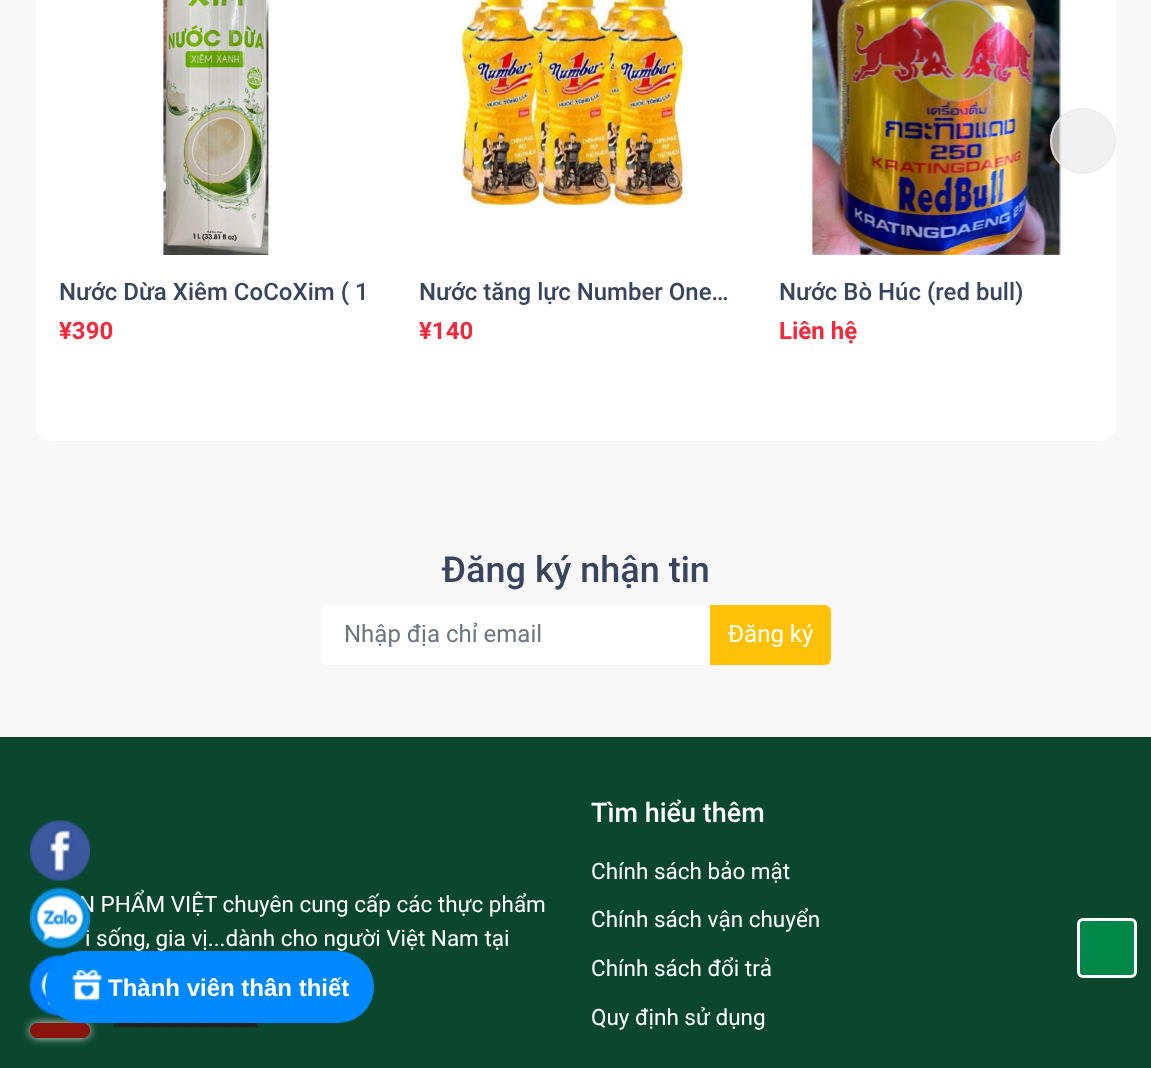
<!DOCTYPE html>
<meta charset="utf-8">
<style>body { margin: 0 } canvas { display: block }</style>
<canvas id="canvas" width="1151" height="1068"></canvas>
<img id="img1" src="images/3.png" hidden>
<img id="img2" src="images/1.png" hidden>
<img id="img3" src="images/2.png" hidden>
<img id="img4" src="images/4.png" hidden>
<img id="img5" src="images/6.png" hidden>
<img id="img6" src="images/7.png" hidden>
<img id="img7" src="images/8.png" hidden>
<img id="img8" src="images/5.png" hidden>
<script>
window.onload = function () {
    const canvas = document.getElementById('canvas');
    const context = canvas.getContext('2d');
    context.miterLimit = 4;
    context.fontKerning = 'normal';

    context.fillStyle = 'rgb(248, 248, 248)';
    context.fillRect(0, 0, 1151, 1068);
    context.fillStyle = 'rgb(255, 255, 255)';
    context.beginPath();
    context.roundRect(36, -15, 1080, 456, 15);
    context.fill();
    context.drawImage(document.getElementById('img1'), 812, 0, 249, 255);
    context.fillStyle = 'rgba(235, 235, 235, 0.7)';
    context.beginPath();
    context.arc(1083, 141, 33, 0, 2 * Math.PI);
    context.fill();
    context.beginPath();
    context.arc(1083, 141, 32, 0, 2 * Math.PI);
    context.strokeStyle = 'rgba(235, 235, 235, 0.7)';
    context.lineWidth = 2;
    context.stroke();
    context.drawImage(document.getElementById('img2'), 163, 0, 106, 255);
    context.drawImage(document.getElementById('img3'), 460, 0, 228, 207);
    context.fillStyle = 'rgb(10, 71, 46)';
    context.fillRect(0, 737, 1151, 331);
    context.drawImage(document.getElementById('img4'), 30, 820, 60, 61);
    context.save();
    context.beginPath();
    context.moveTo(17, 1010);
    context.lineTo(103, 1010);
    context.lineTo(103, 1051);
    context.lineTo(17, 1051);
    context.closePath();
    context.moveTo(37.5, 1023);
    context.lineTo(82.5, 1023);
    context.bezierCurveTo(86.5, 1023, 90, 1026.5, 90, 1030.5);
    context.bezierCurveTo(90, 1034.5, 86.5, 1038, 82.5, 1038);
    context.lineTo(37.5, 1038);
    context.bezierCurveTo(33.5, 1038, 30, 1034.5, 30, 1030.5);
    context.bezierCurveTo(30, 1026.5, 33.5, 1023, 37.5, 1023);
    context.closePath();
    context.clip('evenodd');
    context.fillStyle = 'rgb(221, 221, 221)';
    context.filter = 'blur(4px)';
    context.beginPath();
    context.roundRect(30, 1023, 60, 15, 7.5);
    context.fill();
    context.filter = 'none';
    context.restore();
    context.drawImage(document.getElementById('img5'), 30, 955, 35, 61);
    context.fillStyle = 'rgba(183, 1, 0, 0.74)';
    context.beginPath();
    context.roundRect(30, 1023, 60, 15, 7.5);
    context.fill();
    context.fillStyle = 'rgb(255, 255, 255)';
    context.beginPath();
    context.roundRect(321, 605, 510, 60, 6);
    context.fill();
    context.fillStyle = 'rgb(255, 193, 7)';
    context.beginPath();
    context.roundRect(710, 605, 121, 60, [0, 6, 6, 0]);
    context.fill();
    context.drawImage(document.getElementById('img6'), 113, 1023, 146, 5);
    context.fillStyle = 'rgb(0, 136, 72)';
    context.beginPath();
    context.roundRect(1078.5, 919.5, 57, 57, 4.5);
    context.fill();
    context.strokeStyle = 'rgb(255, 255, 255)';
    context.lineWidth = 3;
    context.stroke();
    context.fillStyle = 'rgb(0, 136, 255)';
    context.beginPath();
    context.roundRect(45, 951, 329, 72, 36);
    context.fill();
    context.drawImage(document.getElementById('img7'), 71, 968, 32, 33);
    context.font = '500 24px Roboto';
    context.fillStyle = 'rgb(58, 68, 94)';
    context.fillText('Nước Dừa Xiêm CoCoXim ( 1', 59, 300);
    context.font = 'bold 24px Roboto';
    context.fillStyle = 'rgb(243, 40, 61)';
    context.fillText('¥390', 59, 339);
    context.font = '500 24px Roboto';
    context.fillStyle = 'rgb(58, 68, 94)';
    context.fillText('Nước tăng lực Number One…', 419, 300);
    context.font = 'bold 24px Roboto';
    context.fillStyle = 'rgb(243, 40, 61)';
    context.fillText('¥140', 419, 339);
    context.font = '500 24px Roboto';
    context.fillStyle = 'rgb(58, 68, 94)';
    context.fillText('Nước Bò Húc (red bull)', 779, 300);
    context.font = 'bold 24px Roboto';
    context.fillStyle = 'rgb(243, 40, 61)';
    context.fillText('Liên hệ', 779, 339);
    context.font = '500 36px Roboto';
    context.fillStyle = 'rgb(58, 68, 94)';
    context.fillText('Đăng ký nhận tin', 442, 582);
    context.font = '24px Roboto';
    context.fillStyle = 'rgb(108, 117, 125)';
    context.fillText('Nhập địa chỉ email', 344, 642);
    context.fillStyle = 'rgb(255, 255, 255)';
    context.fillText('Đăng ký', 728, 642);
    context.font = '22.5px Roboto';
    context.fillText('N PHẨM VIỆT chuyên cung cấp các thực phẩm', 79, 912);
    context.fillText('i sống, gia vị...dành cho người Việt Nam tại', 85, 946);
    context.drawImage(document.getElementById('img8'), 30, 887, 60, 62);
    context.font = '500 27px Roboto';
    context.fillText('Tìm hiểu thêm', 591, 822);
    context.font = '22.5px Roboto';
    context.fillText('Chính sách bảo mật', 591, 879);
    context.fillText('Chính sách vận chuyển', 591, 927);
    context.fillText('Chính sách đổi trả', 591, 976);
    context.fillText('Quy định sử dụng', 591, 1025);
    context.font = 'bold 24px Liberation Sans';
    context.fillText('Thành viên thân thiết', 108, 996);
};
</script>
